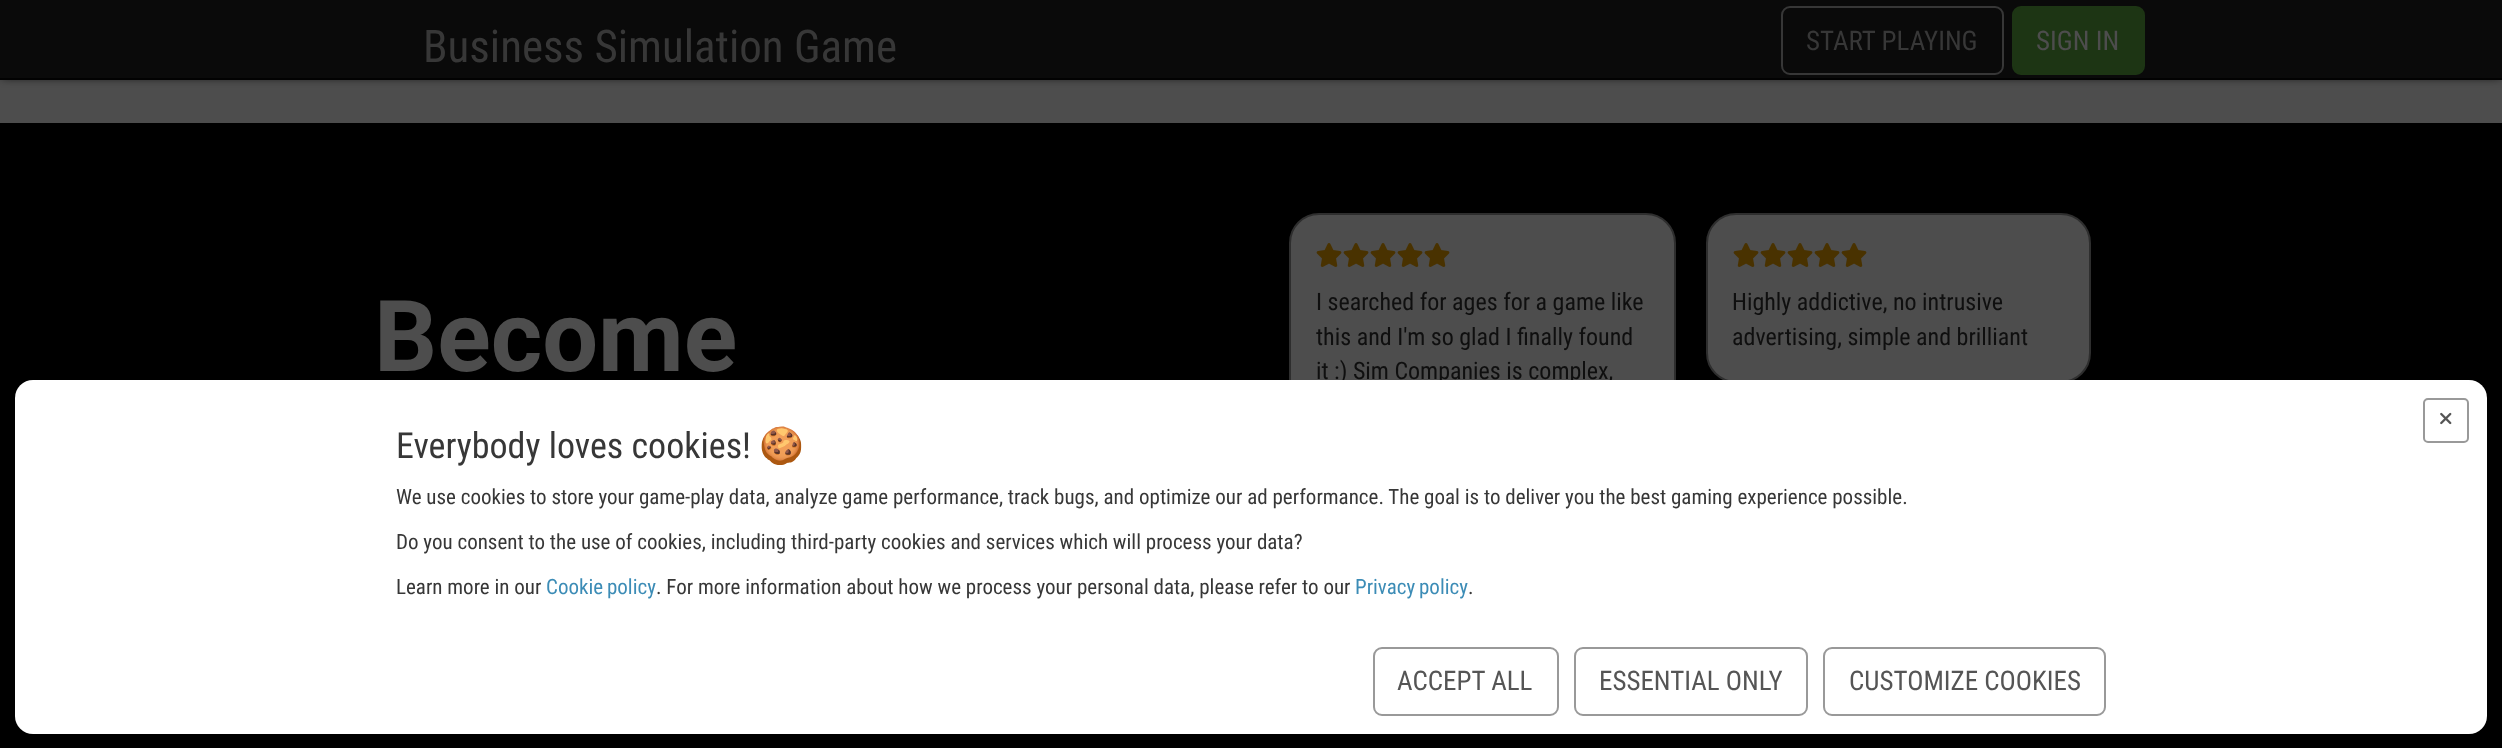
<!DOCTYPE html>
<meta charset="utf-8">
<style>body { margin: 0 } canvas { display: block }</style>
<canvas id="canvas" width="2502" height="748"></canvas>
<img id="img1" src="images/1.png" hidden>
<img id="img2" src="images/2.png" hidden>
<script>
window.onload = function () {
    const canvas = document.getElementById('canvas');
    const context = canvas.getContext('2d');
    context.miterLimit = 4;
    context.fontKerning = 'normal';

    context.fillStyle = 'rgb(77, 77, 77)';
    context.fillRect(0, 0, 2502, 748);
    context.fillStyle = 'rgba(0, 0, 0, 0.75)';
    context.filter = 'blur(4.5px)';
    context.beginPath();
    context.rect(2, 2, 2499, 76);
    context.fill();
    context.filter = 'none';
    context.fillStyle = 'rgb(10, 10, 10)';
    context.fillRect(0, 0, 2502, 78);
    context.fillStyle = 'rgb(2, 2, 2)';
    context.fillRect(0, 78, 2502, 2);
    context.beginPath();
    context.roundRect(1782, 7, 221, 67, 8);
    context.strokeStyle = 'rgb(55, 55, 55)';
    context.lineWidth = 2;
    context.stroke();
    context.fillStyle = 'rgb(29, 53, 20)';
    context.beginPath();
    context.roundRect(2013, 7, 131, 67, 8);
    context.fill();
    context.strokeStyle = 'rgb(29, 53, 20)';
    context.stroke();
    context.fillStyle = 'rgb(0, 0, 0)';
    context.fillRect(0, 123, 2502, 625);
    context.fillStyle = 'rgb(77, 77, 77)';
    context.beginPath();
    context.roundRect(1290, 214, 385, 271, 29);
    context.fill();
    context.strokeStyle = 'rgb(46, 46, 46)';
    context.stroke();
    context.drawImage(document.getElementById('img1'), 1316, 243, 26, 24);
    context.drawImage(document.getElementById('img1'), 1343, 243, 26, 24);
    context.drawImage(document.getElementById('img1'), 1370, 243, 26, 24);
    context.drawImage(document.getElementById('img1'), 1397, 243, 26, 24);
    context.drawImage(document.getElementById('img1'), 1424, 243, 26, 24);
    context.beginPath();
    context.roundRect(1707, 214, 383, 168, 29);
    context.fill();
    context.stroke();
    context.drawImage(document.getElementById('img1'), 1733, 243, 26, 24);
    context.drawImage(document.getElementById('img1'), 1760, 243, 26, 24);
    context.drawImage(document.getElementById('img1'), 1787, 243, 26, 24);
    context.drawImage(document.getElementById('img1'), 1814, 243, 26, 24);
    context.drawImage(document.getElementById('img1'), 1841, 243, 26, 24);
    context.font = '45px Roboto Condensed';
    context.fillStyle = 'rgb(55, 55, 55)';
    context.fillText('Business Simulation Game', 423, 62);
    context.font = '27px Roboto Condensed';
    context.fillText('START PLAYING', 1806, 50);
    context.fillStyle = 'rgb(77, 77, 77)';
    context.fillText('SIGN IN', 2036, 50);
    context.font = 'bold 99px Roboto';
    context.fillText('Become', 374, 371);
    context.font = '24px Roboto Condensed';
    context.fillStyle = 'rgb(15, 15, 15)';
    context.fillText('I searched for ages for a game like', 1316, 310);
    context.fillText('this and I\'m so glad I finally found', 1316, 345);
    context.fillText('it :) Sim Companies is complex,', 1316, 379);
    context.fillText('Highly addictive, no intrusive', 1732, 310);
    context.fillText('advertising, simple and brilliant', 1732, 345);
    context.fillStyle = 'rgb(255, 255, 255)';
    context.beginPath();
    context.roundRect(15, 380, 2472, 354, 18);
    context.fill();
    context.beginPath();
    context.roundRect(2424, 399, 44, 43, 4);
    context.strokeStyle = 'rgb(153, 153, 153)';
    context.stroke();
    context.drawImage(document.getElementById('img2'), 2440, 412, 12, 13);
    context.font = '36px Roboto Condensed';
    context.fillStyle = 'rgb(55, 55, 55)';
    context.fillText('Everybody loves cookies!', 396, 458);
    context.font = '36px Noto Color Emoji';
    context.fillText('🍪', 759, 458);
    context.font = '21px Roboto Condensed';
    context.fillText('We use cookies to store your game-play data, analyze game performance, track bugs, and optimize our ad performance. The goal is to deliver you the best gaming experience possible.', 396, 504);
    context.fillText('Do you consent to the use of cookies, including third-party cookies and services which will process your data?', 396, 549);
    context.fillText('Learn more in our', 396, 594);
    context.wordSpacing = '-1px';
    context.fillStyle = 'rgb(60, 140, 182)';
    context.fillText('Cookie policy', 546, 594);
    context.wordSpacing = '0px';
    context.fillStyle = 'rgb(55, 55, 55)';
    context.fillText('. For more information about how we process your personal data, please refer to our', 656, 594);
    context.wordSpacing = '-1px';
    context.fillStyle = 'rgb(60, 140, 182)';
    context.fillText('Privacy policy', 1355, 594);
    context.wordSpacing = '0px';
    context.fillStyle = 'rgb(55, 55, 55)';
    context.fillText('.', 1468, 594);
    context.beginPath();
    context.roundRect(1374, 648, 184, 67, 8);
    context.stroke();
    context.font = '27px Roboto Condensed';
    context.fillStyle = 'rgb(85, 85, 85)';
    context.fillText('ACCEPT ALL', 1397, 690);
    context.beginPath();
    context.roundRect(1575, 648, 232, 67, 8);
    context.stroke();
    context.fillText('ESSENTIAL ONLY', 1599, 690);
    context.beginPath();
    context.roundRect(1824, 648, 281, 67, 8);
    context.stroke();
    context.fillText('CUSTOMIZE COOKIES', 1849, 690);
};
</script>
